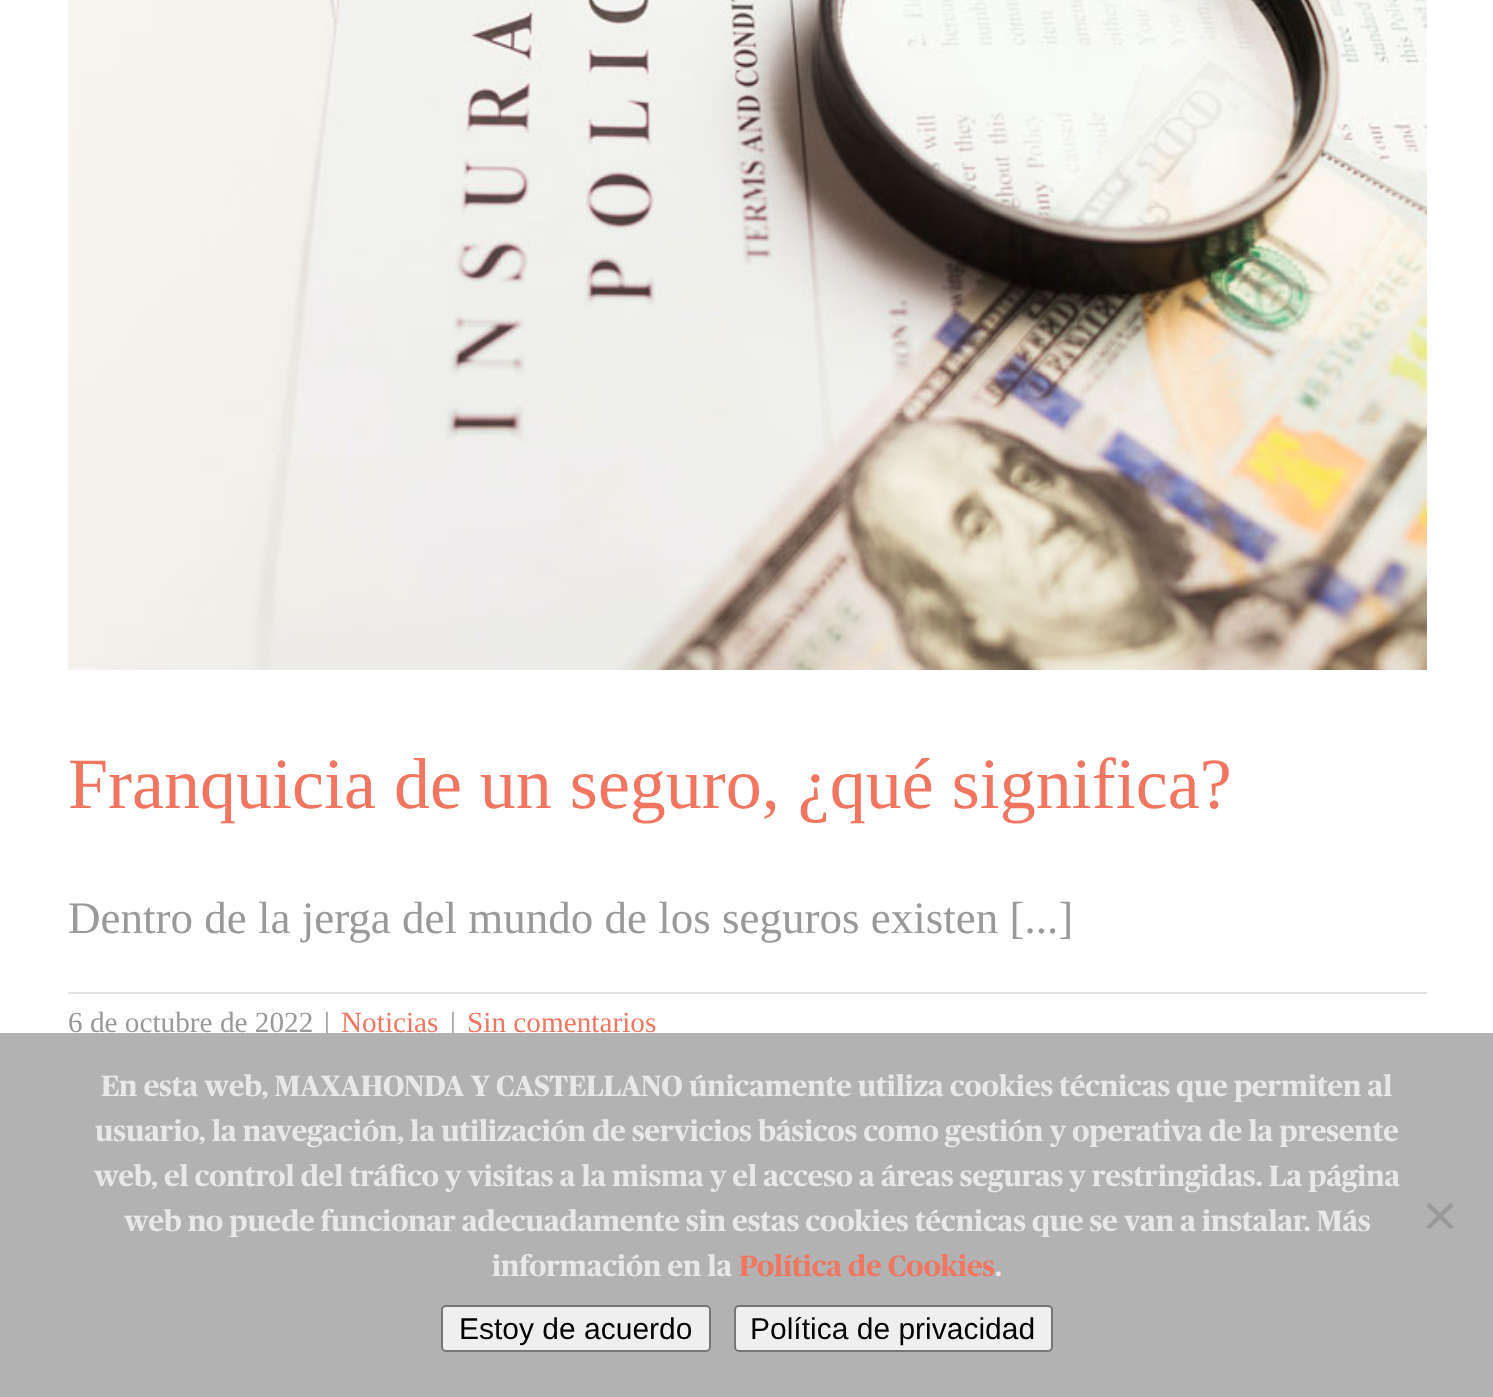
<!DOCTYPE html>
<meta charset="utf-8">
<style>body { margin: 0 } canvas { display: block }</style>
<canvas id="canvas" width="1493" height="1397"></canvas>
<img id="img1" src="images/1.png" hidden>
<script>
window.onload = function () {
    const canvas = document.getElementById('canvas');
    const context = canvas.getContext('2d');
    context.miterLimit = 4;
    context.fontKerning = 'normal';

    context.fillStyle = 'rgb(255, 255, 255)';
    context.fillRect(0, 0, 1493, 1397);
    context.drawImage(document.getElementById('img1'), 68, 0, 1359, 670);
    context.fillStyle = 'rgb(226, 226, 226)';
    context.fillRect(68, 992, 1359, 2);
    context.font = '72px Liberation Serif';
    context.fillStyle = 'rgb(240, 118, 98)';
    context.fillText('Franquicia de un seguro, ¿qué significa?', 68, 808);
    context.font = '45px Liberation Serif';
    context.fillStyle = 'rgb(153, 153, 153)';
    context.fillText('Dentro de la jerga del mundo de los seguros existen [...]', 68, 933);
    context.font = '29.25px Liberation Serif';
    context.fillText('6 de octubre de 2022', 68, 1032);
    context.fillText('|', 324, 1032);
    context.fillStyle = 'rgb(240, 118, 98)';
    context.fillText('Noticias', 341, 1032);
    context.fillStyle = 'rgb(153, 153, 153)';
    context.fillText('|', 450, 1032);
    context.fillStyle = 'rgb(240, 118, 98)';
    context.fillText('Sin comentarios', 467, 1032);
    context.fillStyle = 'rgb(178, 178, 178)';
    context.fillRect(0, 1033, 1493, 364);
    context.font = 'bold 29.25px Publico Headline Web';
    context.fillStyle = 'rgb(232, 232, 232)';
    context.fillText('En esta web, MAXAHONDA Y CASTELLANO únicamente utiliza cookies técnicas que permiten al', 101, 1096);
    context.fillText('usuario, la navegación, la utilización de servicios básicos como gestión y operativa de la presente', 95, 1141);
    context.fillText('web, el control del tráfico y visitas a la misma y el acceso a áreas seguras y restringidas. La página', 94, 1186);
    context.fillText('web no puede funcionar adecuadamente sin estas cookies técnicas que se van a instalar. Más', 124, 1231);
    context.fillText('información en la', 492, 1276);
    context.fillStyle = 'rgb(240, 118, 98)';
    context.fillText('Política de Cookies', 739, 1276);
    context.fillStyle = 'rgb(232, 232, 232)';
    context.fillText('.', 995, 1276);
    context.fillStyle = 'rgb(153, 153, 153)';
    context.beginPath();
    context.moveTo(1450.5, 1202.5);
    context.lineTo(1453.5, 1206);
    context.lineTo(1429.5, 1229.5);
    context.lineTo(1426.5, 1226.5);
    context.closePath();
    context.fill();
    context.beginPath();
    context.moveTo(1426.5, 1206);
    context.lineTo(1429.5, 1202.5);
    context.lineTo(1453.5, 1226.5);
    context.lineTo(1450.5, 1229.5);
    context.closePath();
    context.fill();
    context.fillStyle = 'rgb(239, 239, 239)';
    context.beginPath();
    context.roundRect(442, 1306, 268, 45, 4);
    context.fill();
    context.strokeStyle = 'rgb(118, 118, 118)';
    context.lineWidth = 2;
    context.stroke();
    context.font = '30px Liberation Sans';
    context.fillStyle = 'rgb(0, 0, 0)';
    context.fillText('Estoy de acuerdo', 459, 1339);
    context.fillStyle = 'rgb(239, 239, 239)';
    context.beginPath();
    context.roundRect(735, 1306, 317, 45, 4);
    context.fill();
    context.stroke();
    context.fillStyle = 'rgb(0, 0, 0)';
    context.fillText('Política de privacidad', 750, 1339);
};
</script>
